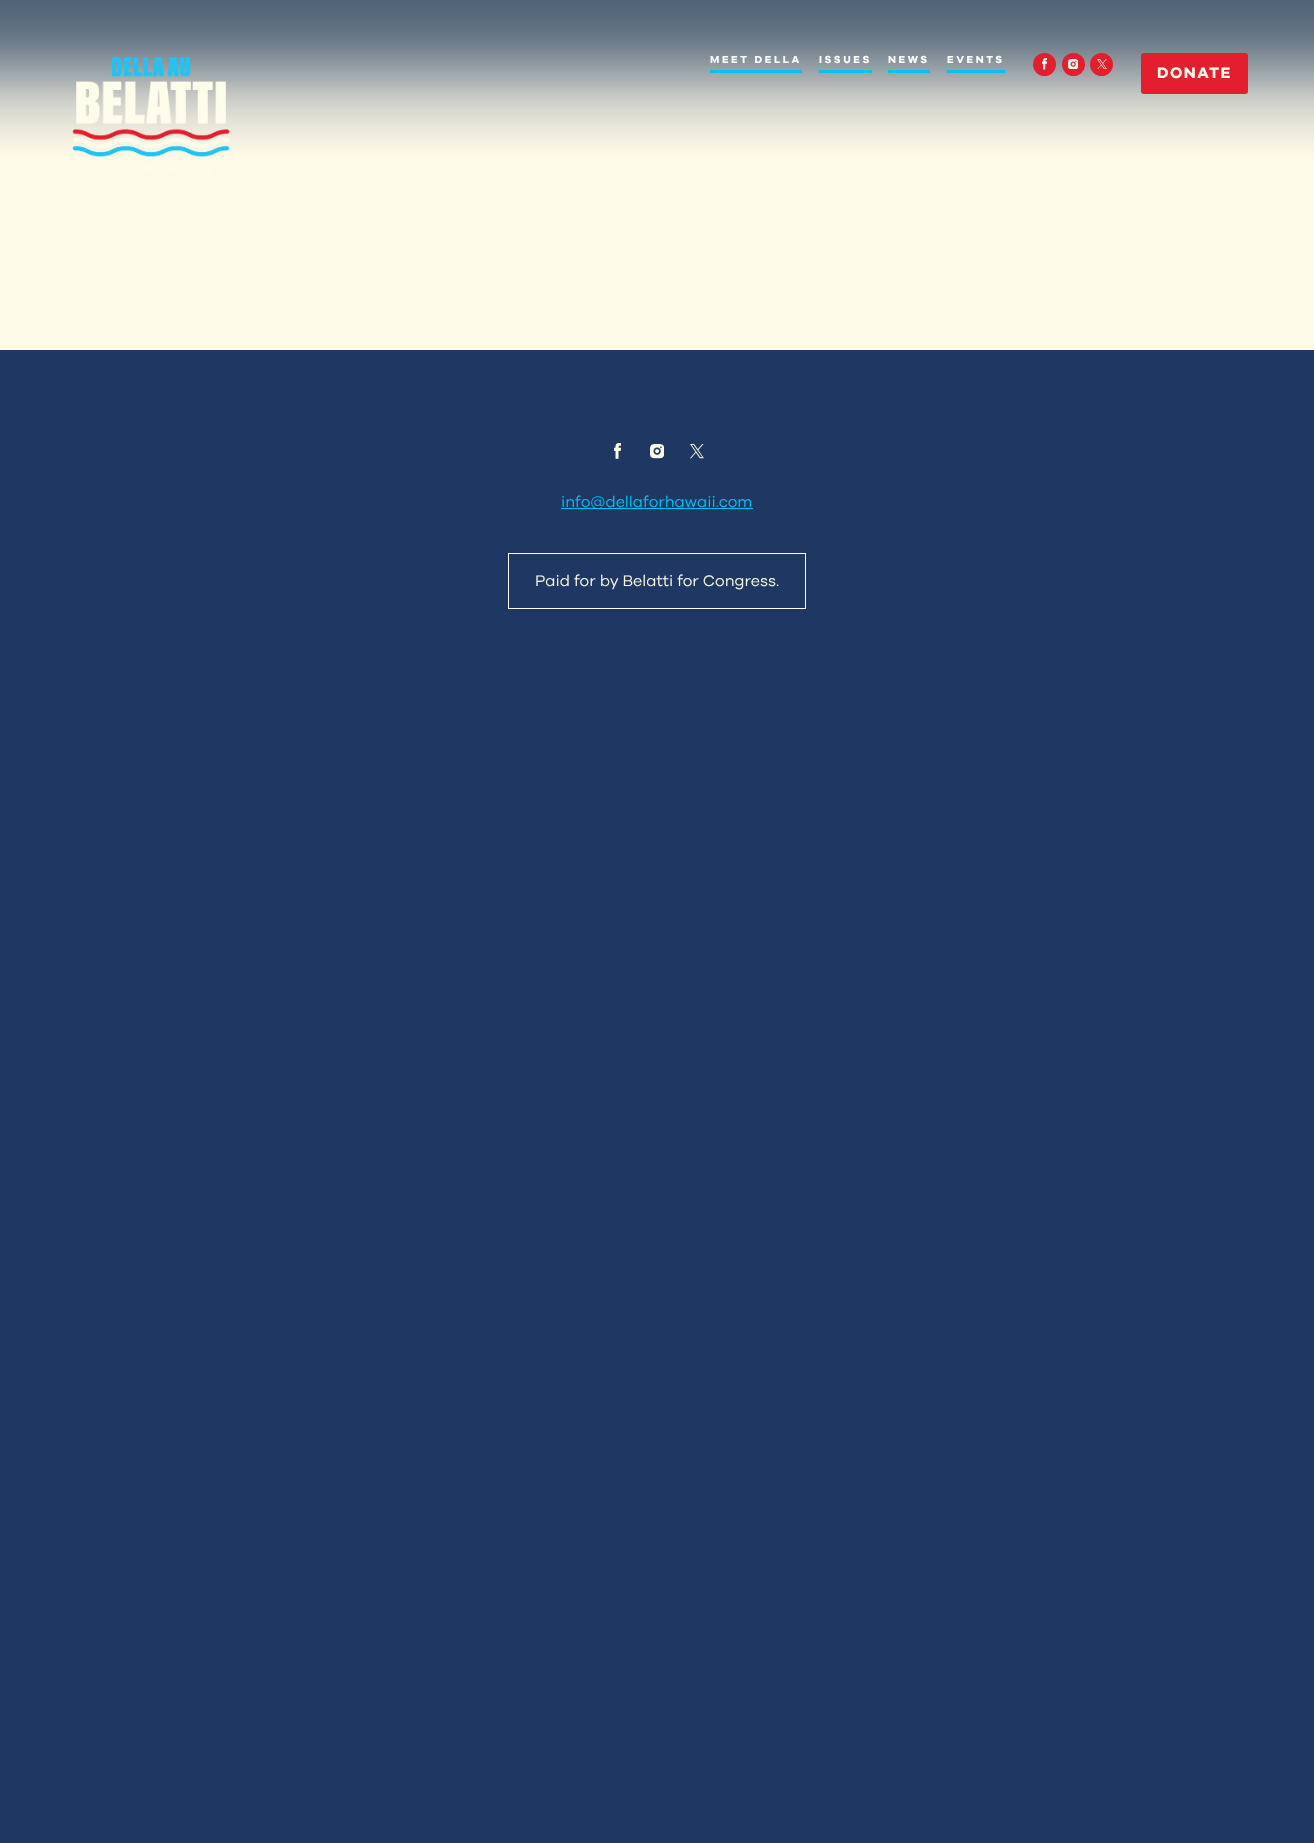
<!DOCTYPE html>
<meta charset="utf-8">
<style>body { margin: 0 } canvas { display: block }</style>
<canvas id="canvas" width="1314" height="1843"></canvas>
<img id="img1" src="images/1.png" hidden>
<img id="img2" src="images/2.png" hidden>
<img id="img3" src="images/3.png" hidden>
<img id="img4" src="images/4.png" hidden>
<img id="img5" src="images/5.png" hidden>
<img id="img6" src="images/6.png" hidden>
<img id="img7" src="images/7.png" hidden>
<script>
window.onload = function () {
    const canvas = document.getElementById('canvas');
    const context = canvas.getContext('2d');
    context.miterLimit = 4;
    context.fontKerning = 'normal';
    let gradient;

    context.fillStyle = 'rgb(30, 56, 99)';
    context.fillRect(0, 0, 1314, 1843);
    gradient = context.createLinearGradient(657, 0, 657, 158);
    gradient.addColorStop(0, 'rgb(80, 99, 120)');
    gradient.addColorStop(0.09, 'rgb(86, 105, 124)');
    gradient.addColorStop(0.16, 'rgb(94, 112, 129)');
    gradient.addColorStop(0.23, 'rgb(104, 120, 135)');
    gradient.addColorStop(0.29, 'rgb(115, 129, 142)');
    gradient.addColorStop(0.34, 'rgb(127, 140, 150)');
    gradient.addColorStop(0.39, 'rgb(140, 151, 158)');
    gradient.addColorStop(0.45, 'rgb(155, 164, 168)');
    gradient.addColorStop(0.5, 'rgb(169, 175, 177)');
    gradient.addColorStop(0.55, 'rgb(183, 188, 186)');
    gradient.addColorStop(0.6, 'rgb(197, 200, 195)');
    gradient.addColorStop(0.67, 'rgb(211, 212, 204)');
    gradient.addColorStop(0.74, 'rgb(224, 223, 212)');
    gradient.addColorStop(0.81, 'rgb(235, 232, 219)');
    gradient.addColorStop(0.9, 'rgb(246, 242, 226)');
    gradient.addColorStop(1, 'rgb(255, 249, 232)');
    context.fillStyle = gradient;
    context.fillRect(0, 0, 1314, 158);
    context.fillStyle = 'rgb(254, 250, 232)';
    context.fillRect(0, 158, 1314, 192);
    context.drawImage(document.getElementById('img1'), 72, 57, 158, 117);
    context.fillStyle = 'rgb(0, 194, 243)';
    context.fillRect(710, 70, 92, 3);
    context.fillRect(819, 70, 53, 3);
    context.fillRect(888, 70, 42, 3);
    context.fillRect(947, 70, 58, 3);
    context.fillStyle = 'rgb(227, 30, 46)';
    context.beginPath();
    context.arc(1044.5, 64.5, 11.5, 0, 2 * Math.PI);
    context.fill();
    context.drawImage(document.getElementById('img2'), 1042, 58, 5, 12);
    context.beginPath();
    context.arc(1073.5, 64.5, 11.5, 0, 2 * Math.PI);
    context.fill();
    context.drawImage(document.getElementById('img3'), 1068, 59, 10, 10);
    context.beginPath();
    context.arc(1101.5, 64.5, 11.5, 0, 2 * Math.PI);
    context.fill();
    context.drawImage(document.getElementById('img4'), 1097, 59, 10, 10);
    context.beginPath();
    context.roundRect(1141, 53, 107, 41, 3);
    context.fill();
    context.drawImage(document.getElementById('img5'), 614, 443, 7, 16);
    context.drawImage(document.getElementById('img6'), 650, 444, 14, 15);
    context.drawImage(document.getElementById('img7'), 690, 444, 14, 15);
    context.fillStyle = 'rgb(0, 194, 243)';
    context.fillRect(561, 508, 192, 1);
    context.strokeStyle = 'rgb(255, 255, 255)';
    context.strokeRect(508.5, 553.5, 297, 55);
    context.letterSpacing = '2.6px';
    context.font = 'bold 10.5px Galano';
    context.fillStyle = 'rgb(255, 255, 255)';
    context.fillText('MEET DELLA', 710, 63);
    context.fillText('ISSUES', 819, 63);
    context.fillText('NEWS', 888, 63);
    context.fillText('EVENTS', 947, 63);
    context.letterSpacing = '1.5px';
    context.font = 'bold 15.75px Galano';
    context.fillStyle = 'rgb(254, 250, 232)';
    context.fillText('DONATE', 1157, 78);
    context.letterSpacing = '0px';
    context.font = '15.8px Galano';
    context.fillStyle = 'rgb(0, 194, 243)';
    context.fillText('info@dellaforhawaii.com', 561, 507);
    context.fillStyle = 'rgb(254, 250, 232)';
    context.fillText('Paid for by Belatti for Congress.', 535, 586);
};
</script>
